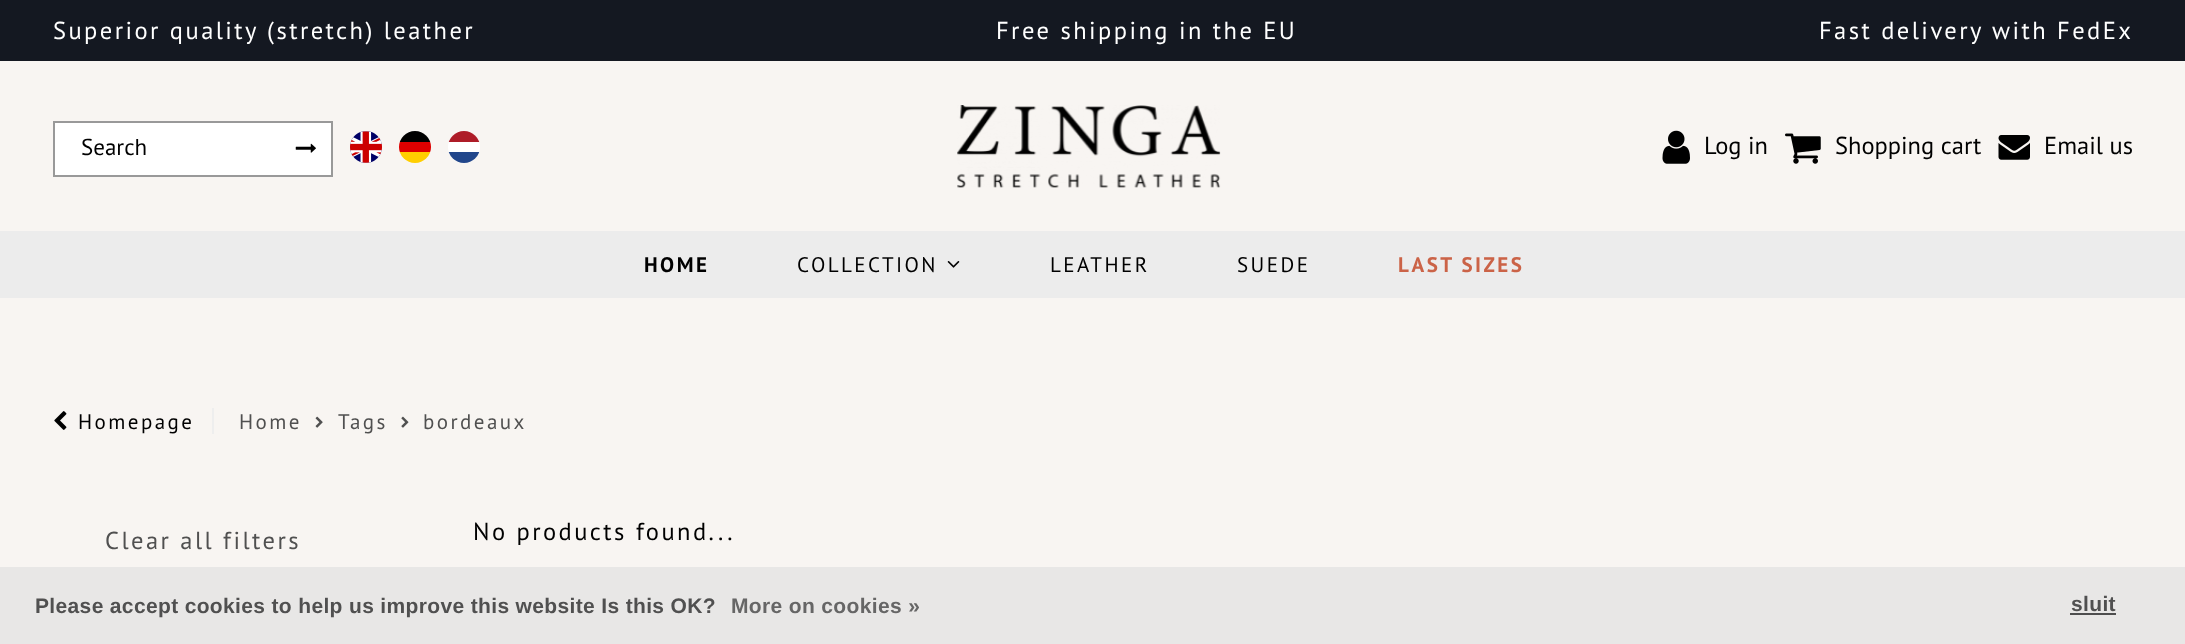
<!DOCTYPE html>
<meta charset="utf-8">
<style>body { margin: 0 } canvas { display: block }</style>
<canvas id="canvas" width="2185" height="644"></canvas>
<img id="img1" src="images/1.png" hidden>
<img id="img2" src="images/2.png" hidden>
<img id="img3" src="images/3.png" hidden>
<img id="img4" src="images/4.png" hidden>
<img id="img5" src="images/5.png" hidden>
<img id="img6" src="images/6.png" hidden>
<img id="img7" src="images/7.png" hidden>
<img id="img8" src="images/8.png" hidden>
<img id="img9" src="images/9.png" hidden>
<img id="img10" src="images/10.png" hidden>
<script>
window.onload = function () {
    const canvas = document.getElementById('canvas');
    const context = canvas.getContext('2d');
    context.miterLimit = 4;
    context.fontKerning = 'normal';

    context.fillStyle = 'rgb(248, 245, 242)';
    context.fillRect(0, 0, 2185, 644);
    context.fillStyle = 'rgb(20, 24, 33)';
    context.fillRect(0, 0, 2185, 61);
    context.fillStyle = 'rgb(255, 255, 255)';
    context.beginPath();
    context.rect(54, 122, 278, 54);
    context.fill();
    context.strokeStyle = 'rgb(153, 153, 153)';
    context.lineWidth = 2;
    context.stroke();
    context.drawImage(document.getElementById('img1'), 295, 143, 21, 10);
    context.drawImage(document.getElementById('img2'), 350, 131, 32, 32);
    context.save();
    context.beginPath();
    context.roundRect(399, 131, 32, 32, 16);
    context.clip();
    context.fillStyle = 'rgb(255, 206, 0)';
    context.fillRect(399, 152, 32, 11);
    context.fillStyle = 'rgb(0, 0, 0)';
    context.fillRect(399, 131, 32, 11);
    context.fillStyle = 'rgb(221, 0, 0)';
    context.fillRect(399, 142, 32, 10);
    context.restore();
    context.beginPath();
    context.arc(464, 147, 16, 0, 2 * Math.PI);
    context.fill();
    context.save();
    context.beginPath();
    context.roundRect(448, 131, 32, 32, 16);
    context.clip();
    context.fillStyle = 'rgb(33, 70, 139)';
    context.fillRect(448, 152, 32, 11);
    context.fillStyle = 'rgb(174, 28, 40)';
    context.fillRect(448, 131, 32, 11);
    context.restore();
    context.drawImage(document.getElementById('img3'), 957, 105, 264, 83);
    context.drawImage(document.getElementById('img4'), 1662, 130, 28, 34);
    context.drawImage(document.getElementById('img5'), 1785, 133, 36, 31);
    context.drawImage(document.getElementById('img6'), 1998, 135, 32, 25);
    context.fillStyle = 'rgb(236, 236, 236)';
    context.fillRect(0, 231, 2185, 67);
    context.drawImage(document.getElementById('img7'), 947, 261, 13, 7);
    context.fillStyle = 'rgb(238, 238, 238)';
    context.fillRect(212, 408, 2, 26);
    context.drawImage(document.getElementById('img8'), 54, 411, 13, 19);
    context.drawImage(document.getElementById('img9'), 315, 416, 8, 12);
    context.drawImage(document.getElementById('img10'), 401, 416, 8, 12);
    context.fillStyle = 'rgb(232, 231, 230)';
    context.fillRect(0, 567, 2185, 77);
    context.fillStyle = 'rgb(78, 78, 78)';
    context.fillRect(2070, 613, 46, 2);
    context.letterSpacing = '2.45px';
    context.font = '24.5px PT Sans';
    context.fillStyle = 'rgb(255, 255, 255)';
    context.fillText('Superior quality (stretch) leather', 53, 39);
    context.fillText('Free shipping in the EU', 996, 39);
    context.fillText('Fast delivery with FedEx', 1819, 39);
    context.letterSpacing = '0px';
    context.font = '23px PT Sans';
    context.fillStyle = 'rgb(0, 0, 0)';
    context.fillText('Search', 81, 155);
    context.font = '24.5px PT Sans';
    context.fillText('Log in', 1704, 154);
    context.fillText('Shopping cart', 1835, 154);
    context.fillText('Email us', 2044, 154);
    context.letterSpacing = '2.45px';
    context.font = 'bold 21px PT Sans';
    context.fillText('HOME', 644, 272);
    context.font = '21px PT Sans';
    context.fillText('COLLECTION', 797, 272);
    context.fillText('LEATHER', 1050, 272);
    context.fillText('SUEDE', 1237, 272);
    context.font = 'bold 21px PT Sans';
    context.fillStyle = 'rgb(203, 99, 71)';
    context.fillText('LAST SIZES', 1398, 272);
    context.font = '21px PT Sans';
    context.fillStyle = 'rgb(0, 0, 0)';
    context.fillText('Homepage', 78, 429);
    context.fillStyle = 'rgb(80, 80, 80)';
    context.fillText('Home', 239, 429);
    context.fillText('Tags', 338, 429);
    context.fillText('bordeaux', 423, 429);
    context.font = '24.5px PT Sans';
    context.fillText('Clear all filters', 105, 549);
    context.fillStyle = 'rgb(0, 0, 0)';
    context.fillText('No products found...', 473, 540);
    context.letterSpacing = '0.35px';
    context.font = 'bold 21px Liberation Sans';
    context.fillStyle = 'rgb(80, 80, 80)';
    context.fillText('Please accept cookies to help us improve this website Is this OK?', 35, 613);
    context.fillStyle = 'rgb(102, 102, 102)';
    context.fillText('More on cookies »', 731, 613);
    context.fillStyle = 'rgb(80, 80, 80)';
    context.fillText('sluit', 2071, 611);
};
</script>
